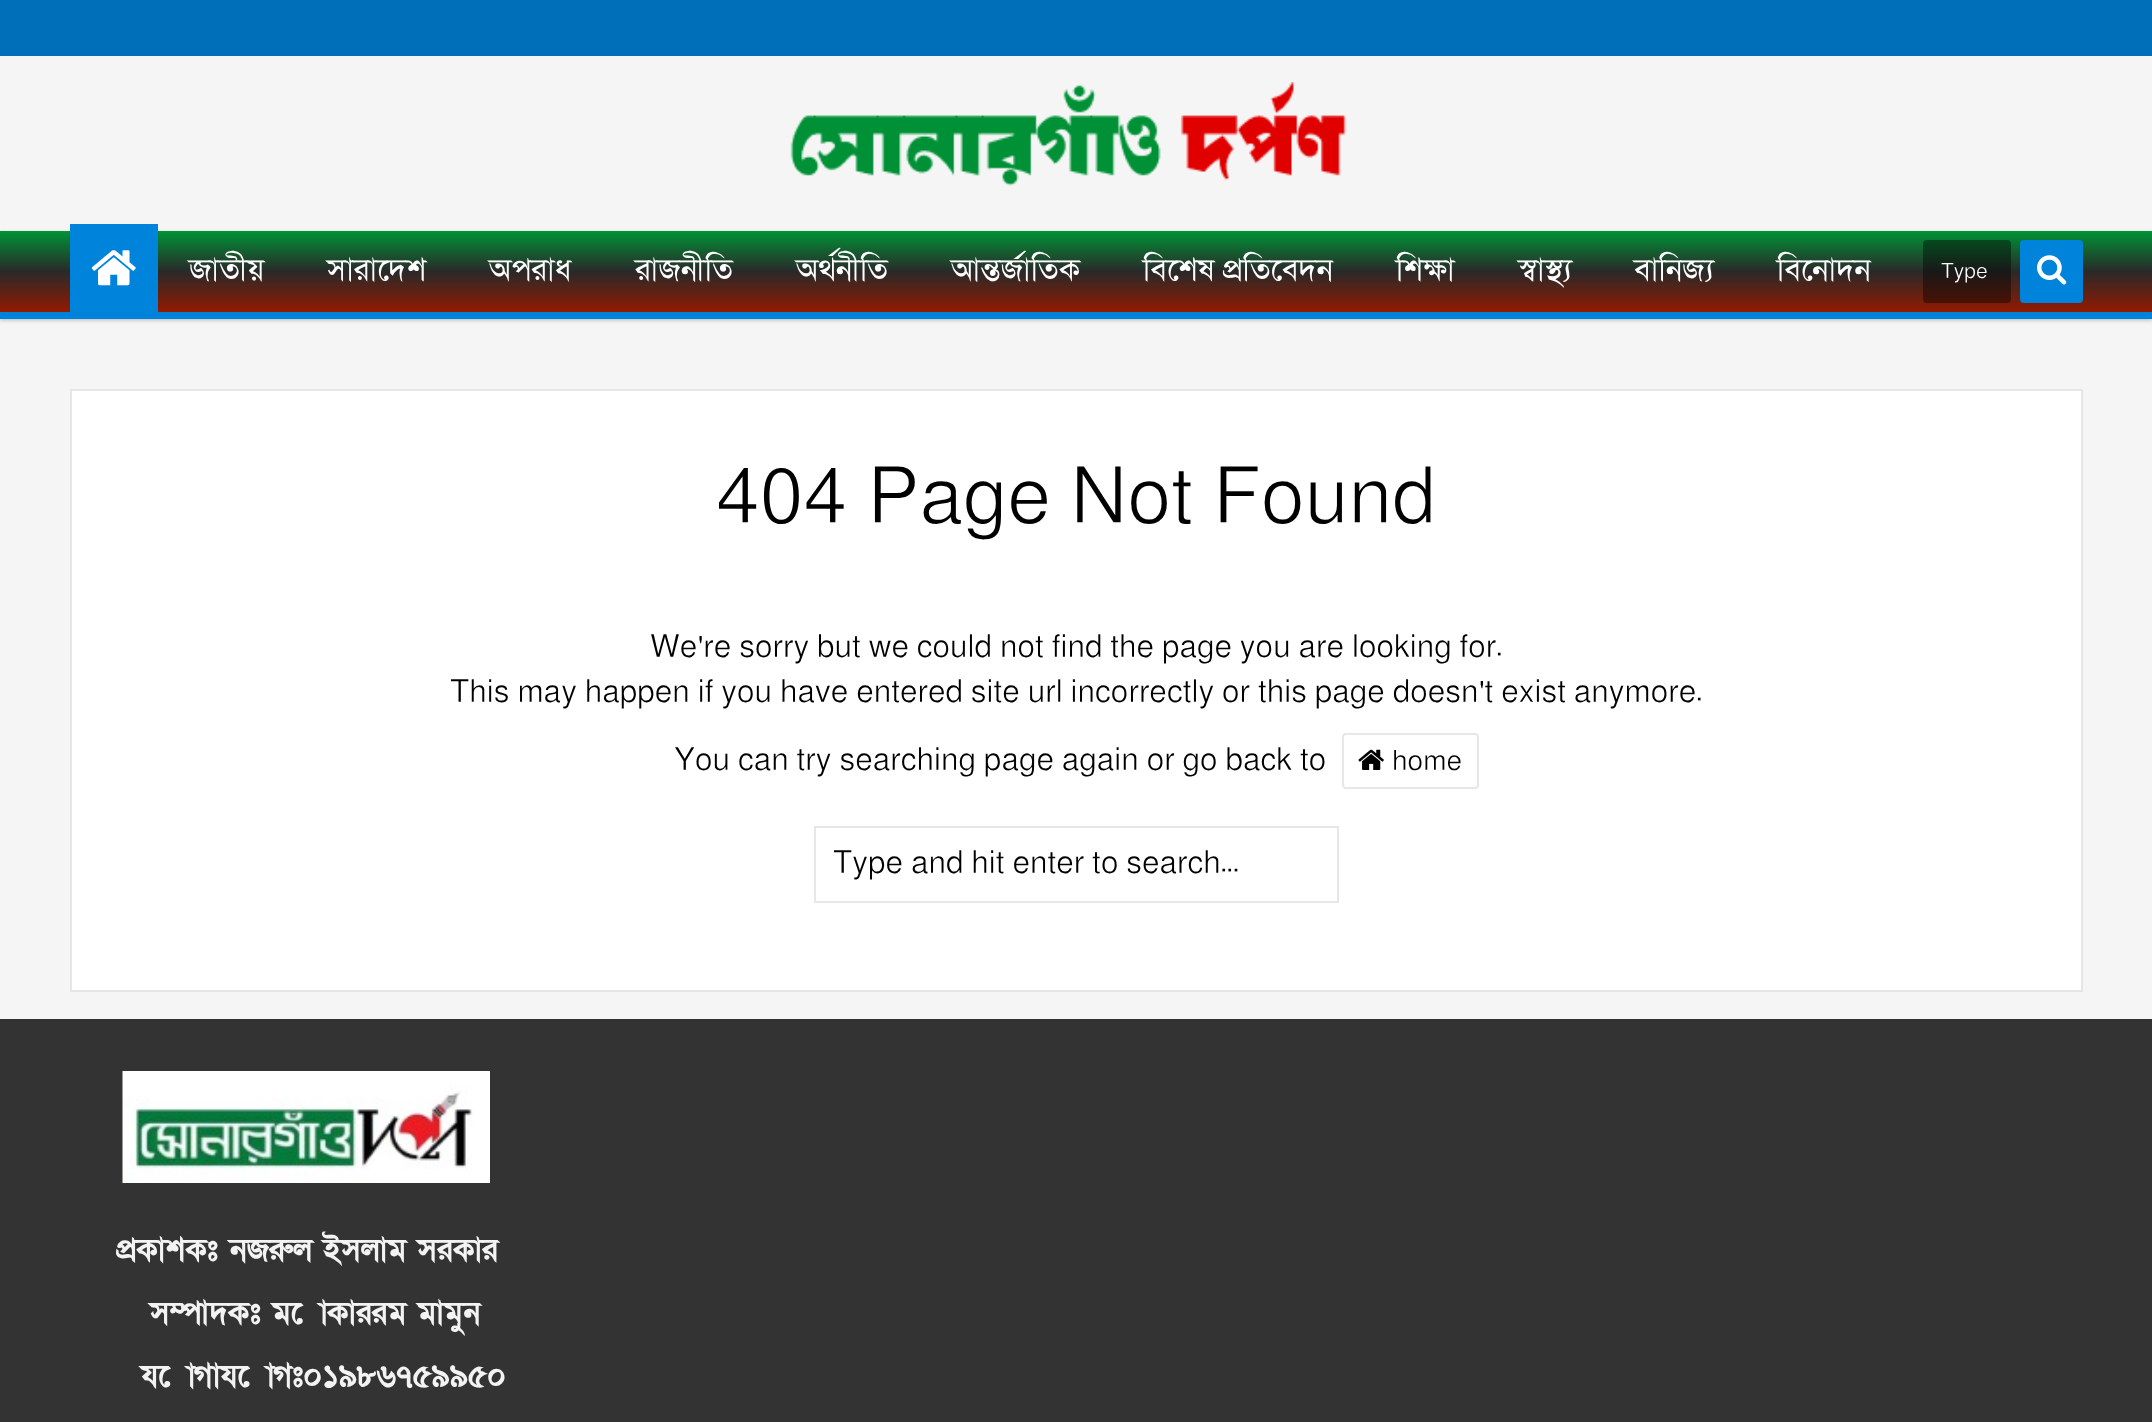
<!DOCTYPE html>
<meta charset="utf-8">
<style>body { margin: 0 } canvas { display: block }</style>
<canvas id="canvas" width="2152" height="1422"></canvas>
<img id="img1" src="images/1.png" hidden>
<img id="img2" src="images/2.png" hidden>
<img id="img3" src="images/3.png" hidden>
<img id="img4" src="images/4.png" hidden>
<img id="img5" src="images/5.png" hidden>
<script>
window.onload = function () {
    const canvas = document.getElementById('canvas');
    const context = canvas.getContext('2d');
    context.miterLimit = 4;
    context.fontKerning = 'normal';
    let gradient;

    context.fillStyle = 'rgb(245, 245, 245)';
    context.fillRect(0, 0, 2152, 1422);
    context.fillStyle = 'rgb(0, 111, 185)';
    context.fillRect(0, 0, 2152, 56);
    context.drawImage(document.getElementById('img1'), 790, 82, 557, 104);
    context.fillStyle = 'rgba(0, 0, 0, 0.26)';
    context.filter = 'blur(2px)';
    context.beginPath();
    context.rect(0, 233, 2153, 87);
    context.fill();
    context.filter = 'none';
    gradient = context.createLinearGradient(1076, 231, 1076, 312);
    gradient.addColorStop(0, 'rgb(0, 147, 54)');
    gradient.addColorStop(0.5, 'rgb(41, 41, 41)');
    gradient.addColorStop(1, 'rgb(147, 26, 0)');
    context.fillStyle = gradient;
    context.fillRect(0, 231, 2152, 81);
    context.fillStyle = 'rgb(0, 131, 218)';
    context.fillRect(0, 312, 2152, 7);
    context.fillRect(70, 224, 88, 88);
    context.drawImage(document.getElementById('img2'), 91, 250, 45, 36);
    context.fillStyle = 'rgba(0, 0, 0, 0.4)';
    context.beginPath();
    context.roundRect(1923, 240, 88, 63, 4);
    context.fill();
    context.fillStyle = 'rgb(0, 131, 218)';
    context.beginPath();
    context.roundRect(2020, 240, 63, 63, 4);
    context.fill();
    context.drawImage(document.getElementById('img3'), 2037, 255, 30, 30);
    context.fillStyle = 'rgb(255, 255, 255)';
    context.beginPath();
    context.rect(71, 390, 2011, 601);
    context.fill();
    context.strokeStyle = 'rgb(230, 230, 230)';
    context.lineWidth = 2;
    context.stroke();
    context.beginPath();
    context.roundRect(1343, 734, 135, 54, 3);
    context.strokeStyle = 'rgb(231, 231, 231)';
    context.stroke();
    context.drawImage(document.getElementById('img4'), 1358, 749, 26, 21);
    context.strokeRect(815, 827, 523, 75);
    context.fillStyle = 'rgb(51, 51, 51)';
    context.fillRect(0, 1019, 2152, 403);
    context.drawImage(document.getElementById('img5'), 122, 1071, 368, 112);
    context.font = '31.5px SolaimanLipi';
    context.fillStyle = 'rgb(255, 255, 255)';
    context.fillText('জাতীয়', 189, 280);
    context.fillText('সারাদেশ', 327, 280);
    context.fillText('অপরাধ', 489, 280);
    context.fillText('রাজনীতি', 635, 280);
    context.fillText('অর্থনীতি', 796, 280);
    context.fillText('আন্তর্জাতিক', 951, 280);
    context.fillText('বিশেষ প্রতিবেদন', 1143, 280);
    context.fillText('শিক্ষা', 1396, 280);
    context.fillText('স্বাস্থ্য', 1518, 280);
    context.fillText('বানিজ্য', 1634, 280);
    context.fillText('বিনোদন', 1777, 280);
    context.font = '100 21px SolaimanLipi';
    context.fillText('Type', 1941, 278);
    context.font = '100 78.75px SolaimanLipi';
    context.fillStyle = 'rgb(0, 0, 0)';
    context.fillText('404 Page Not Found', 716, 523);
    context.font = '100 31.5px SolaimanLipi';
    context.fillText('We\'re sorry but we could not find the page you are looking for.', 650, 657);
    context.fillText('This may happen if you have entered site url incorrectly or this page doesn\'t exist anymore.', 450, 702);
    context.fillText('You can try searching page again or go back to', 674, 770);
    context.font = '100 28px SolaimanLipi';
    context.fillText('home', 1392, 770);
    context.font = '100 31.5px SolaimanLipi';
    context.fillText('Type and hit enter to search...', 833, 873);
    context.font = 'bold 31.5px SolaimanLipi';
    context.fillStyle = 'rgb(243, 243, 243)';
    context.fillText('প্রকাশকঃ নজরুল ইসলাম সরকার', 116, 1260);
    context.fillText('সম্পাদকঃ মোকাররম মামুন', 150, 1323);
    context.fillText('যোগাযোগঃ০১৯৮৬৭৫৯৯৫০', 141, 1386);
};
</script>
